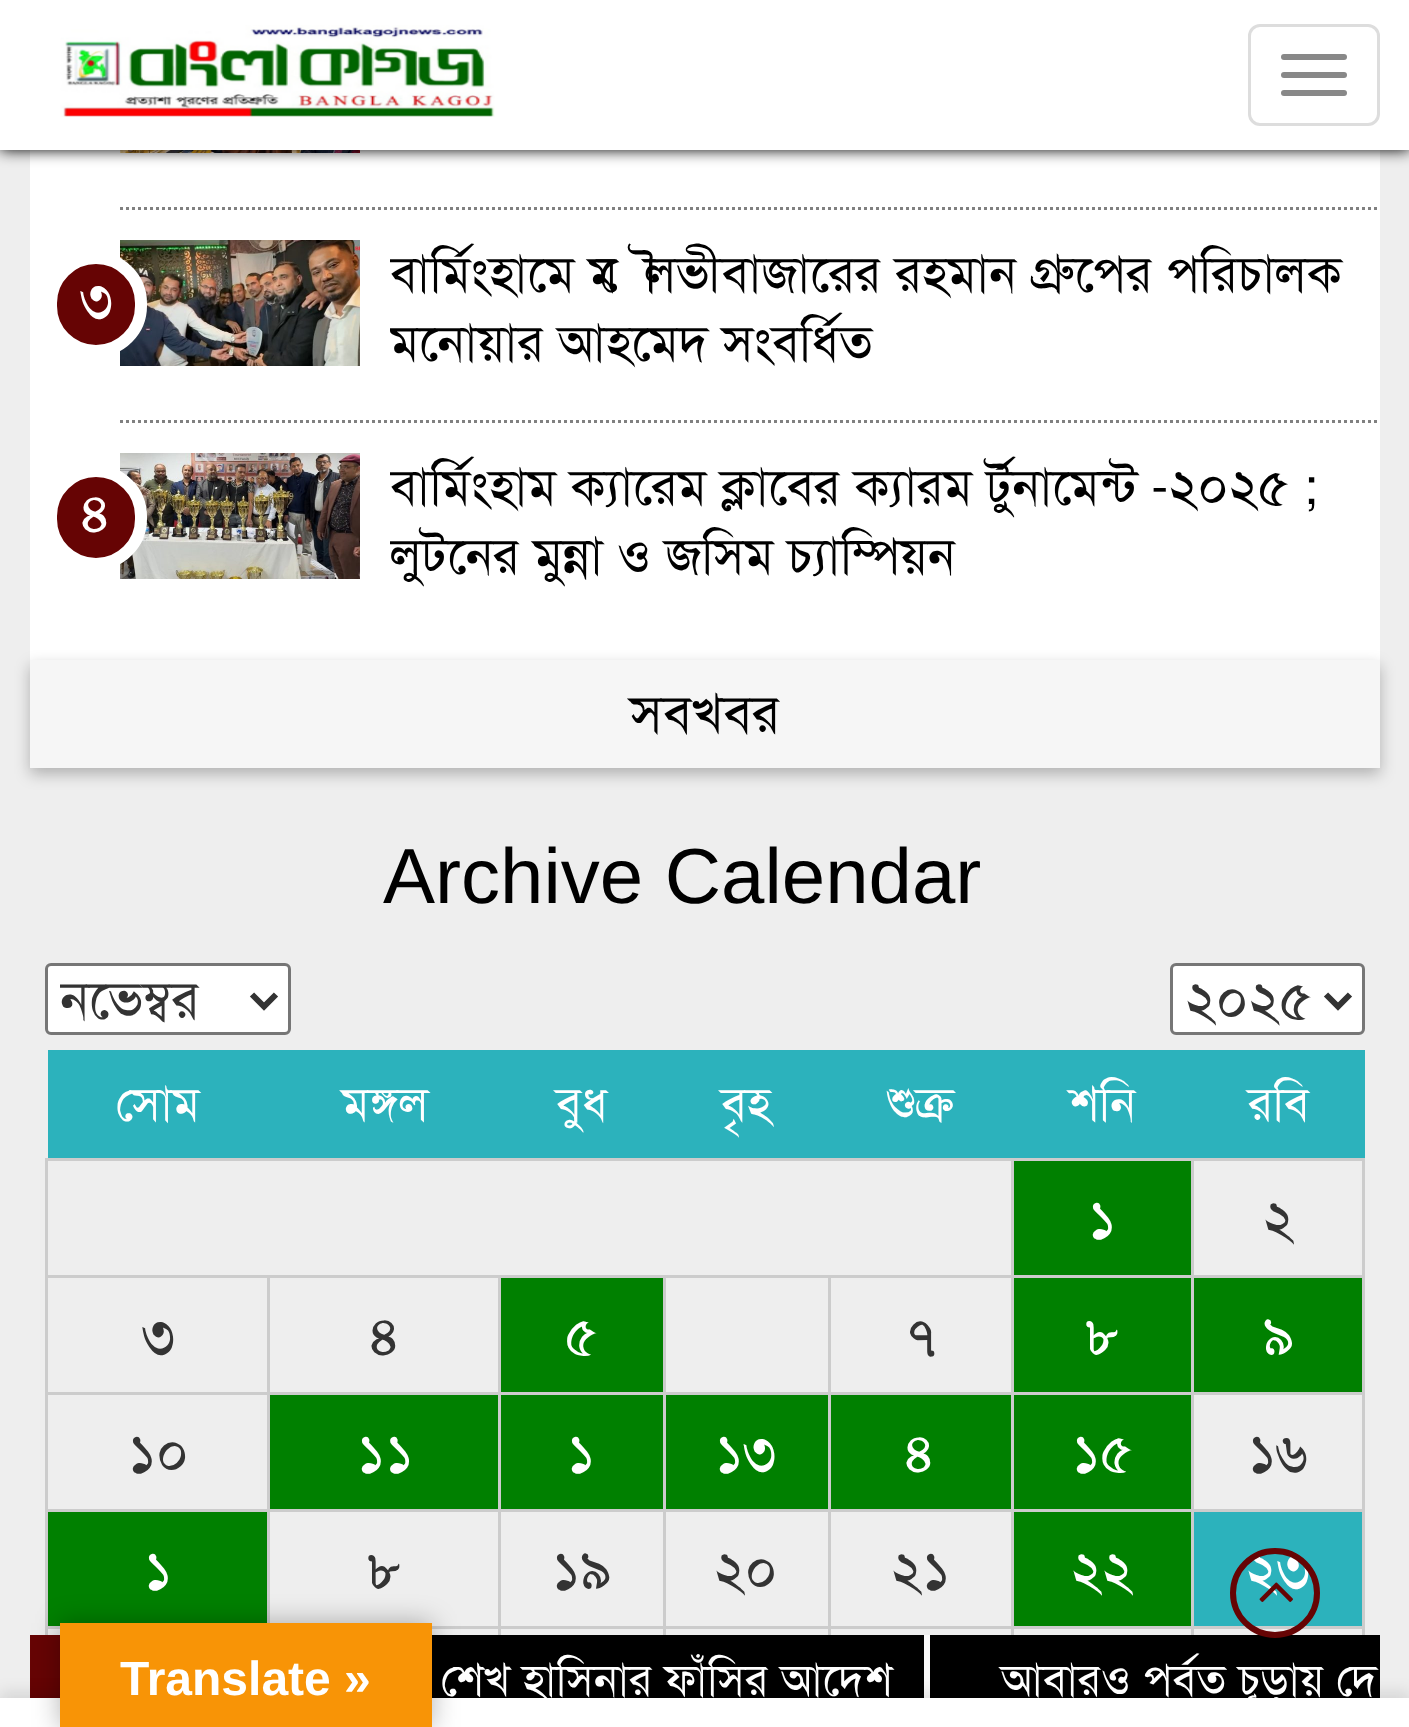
<!DOCTYPE html>
<meta charset="utf-8">
<style>body { margin: 0 } canvas { display: block }</style>
<canvas id="canvas" width="1409" height="1727"></canvas>
<img id="img1" src="images/2.png" hidden>
<img id="img2" src="images/1.png" hidden>
<img id="img3" src="images/3.png" hidden>
<img id="img4" src="images/4.png" hidden>
<img id="img5" src="images/5.png" hidden>
<script>
window.onload = function () {
    const canvas = document.getElementById('canvas');
    const context = canvas.getContext('2d');
    context.miterLimit = 4;
    context.fontKerning = 'normal';

    context.fillStyle = 'rgb(238, 238, 238)';
    context.fillRect(0, 0, 1409, 1727);
    context.fillStyle = 'rgb(255, 255, 255)';
    context.fillRect(30, 150, 1350, 510);
    context.drawImage(document.getElementById('img1'), 120, 150, 240, 3);
    context.fillStyle = 'rgb(0, 0, 0)';
    context.filter = 'blur(7.5px)';
    context.beginPath();
    context.rect(0, 0, 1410, 150);
    context.fill();
    context.filter = 'none';
    context.fillStyle = 'rgb(255, 255, 255)';
    context.fillRect(0, 0, 1409, 150);
    context.drawImage(document.getElementById('img2'), 60, 25, 435, 92);
    context.beginPath();
    context.roundRect(1249.5, 25.5, 129, 99, 10.5);
    context.strokeStyle = 'rgb(221, 221, 221)';
    context.lineWidth = 3;
    context.stroke();
    context.fillStyle = 'rgb(136, 136, 136)';
    context.beginPath();
    context.roundRect(1281, 54, 66, 6, 3);
    context.fill();
    context.beginPath();
    context.roundRect(1281, 72, 66, 6, 3);
    context.fill();
    context.beginPath();
    context.roundRect(1281, 90, 66, 6, 3);
    context.fill();
    context.beginPath();
    context.moveTo(120, 208.5);
    context.lineTo(1380, 208.5);
    context.strokeStyle = 'rgb(128, 128, 128)';
    context.setLineDash([3, 3]);
    context.stroke();
    context.beginPath();
    context.moveTo(120, 421.5);
    context.lineTo(1380, 421.5);
    context.stroke();
    context.drawImage(document.getElementById('img3'), 120, 240, 240, 126);
    context.fillStyle = 'rgb(102, 4, 4)';
    context.beginPath();
    context.roundRect(51, 258, 90, 93, 45);
    context.fill();
    context.strokeStyle = 'rgb(255, 255, 255)';
    context.lineWidth = 12;
    context.setLineDash([]);
    context.stroke();
    context.drawImage(document.getElementById('img4'), 120, 453, 240, 126);
    context.beginPath();
    context.roundRect(51, 471, 90, 93, 45);
    context.fill();
    context.stroke();
    context.fillStyle = 'rgba(0, 0, 0, 0.26)';
    context.filter = 'blur(7.5px)';
    context.beginPath();
    context.rect(30, 666, 1350, 108);
    context.fill();
    context.filter = 'none';
    context.fillStyle = 'rgb(246, 246, 246)';
    context.fillRect(30, 660, 1350, 108);
    context.fillStyle = 'rgb(255, 255, 255)';
    context.beginPath();
    context.roundRect(46.5, 964.5, 243, 69, 4.5);
    context.fill();
    context.strokeStyle = 'rgb(118, 118, 118)';
    context.lineWidth = 3;
    context.stroke();
    context.beginPath();
    context.moveTo(252, 994.5);
    context.lineTo(264, 1006.5);
    context.lineTo(276, 994.5);
    context.strokeStyle = 'rgb(51, 51, 51)';
    context.lineWidth = 6;
    context.stroke();
    context.beginPath();
    context.roundRect(1171.5, 964.5, 192, 69, 4.5);
    context.fill();
    context.strokeStyle = 'rgb(118, 118, 118)';
    context.lineWidth = 3;
    context.stroke();
    context.beginPath();
    context.moveTo(1326, 994.5);
    context.lineTo(1338, 1006.5);
    context.lineTo(1350, 994.5);
    context.strokeStyle = 'rgb(51, 51, 51)';
    context.lineWidth = 6;
    context.stroke();
    context.fillStyle = 'rgb(44, 178, 188)';
    context.fillRect(48, 1050, 1317, 108);
    context.fillStyle = 'rgb(204, 204, 204)';
    context.fillRect(1191, 1158, 174, 3);
    context.fillRect(1191, 1275, 174, 3);
    context.fillRect(1191, 1392, 174, 3);
    context.fillRect(1191, 1509, 174, 3);
    context.fillRect(1191, 1626, 174, 3);
    context.fillRect(1191, 1626, 3, 9);
    context.fillRect(1011, 1626, 183, 3);
    context.fillRect(1191, 1509, 3, 120);
    context.fillRect(1011, 1509, 183, 3);
    context.fillRect(1191, 1392, 3, 120);
    context.fillRect(1011, 1392, 183, 3);
    context.fillRect(1191, 1275, 3, 120);
    context.fillRect(1011, 1275, 183, 3);
    context.fillRect(1191, 1158, 3, 120);
    context.fillRect(1011, 1158, 183, 3);
    context.fillRect(1011, 1626, 3, 9);
    context.fillRect(828, 1626, 186, 3);
    context.fillRect(1011, 1509, 3, 120);
    context.fillRect(828, 1509, 186, 3);
    context.fillRect(1011, 1392, 3, 120);
    context.fillRect(828, 1392, 186, 3);
    context.fillRect(1011, 1275, 3, 120);
    context.fillRect(828, 1275, 186, 3);
    context.fillRect(1011, 1158, 3, 120);
    context.fillRect(45, 1158, 969, 3);
    context.fillRect(828, 1626, 3, 9);
    context.fillRect(663, 1626, 168, 3);
    context.fillRect(828, 1509, 3, 120);
    context.fillRect(663, 1509, 168, 3);
    context.fillRect(828, 1392, 3, 120);
    context.fillRect(663, 1392, 168, 3);
    context.fillRect(828, 1275, 3, 120);
    context.fillRect(663, 1275, 168, 3);
    context.fillRect(663, 1626, 3, 9);
    context.fillRect(498, 1626, 168, 3);
    context.fillRect(663, 1509, 3, 120);
    context.fillRect(498, 1509, 168, 3);
    context.fillRect(663, 1392, 3, 120);
    context.fillRect(498, 1392, 168, 3);
    context.fillRect(663, 1275, 3, 120);
    context.fillRect(498, 1275, 168, 3);
    context.fillRect(498, 1626, 3, 9);
    context.fillRect(432, 1626, 69, 3);
    context.fillRect(498, 1509, 3, 120);
    context.fillRect(267, 1509, 234, 3);
    context.fillRect(498, 1392, 3, 120);
    context.fillRect(267, 1392, 234, 3);
    context.fillRect(498, 1275, 3, 120);
    context.fillRect(267, 1275, 234, 3);
    context.fillRect(267, 1509, 3, 120);
    context.fillRect(45, 1509, 225, 3);
    context.fillRect(267, 1392, 3, 120);
    context.fillRect(45, 1392, 225, 3);
    context.fillRect(267, 1275, 3, 120);
    context.fillRect(45, 1275, 225, 3);
    context.fillRect(45, 1626, 15, 3);
    context.fillRect(45, 1626, 3, 9);
    context.fillRect(45, 1509, 3, 120);
    context.fillRect(45, 1392, 3, 120);
    context.fillRect(45, 1275, 3, 120);
    context.fillRect(45, 1158, 3, 120);
    context.fillStyle = 'rgb(0, 128, 0)';
    context.fillRect(1014, 1161, 177, 114);
    context.fillStyle = 'rgb(204, 204, 204)';
    context.fillRect(1362, 1626, 3, 9);
    context.fillRect(1362, 1509, 3, 120);
    context.fillRect(1362, 1392, 3, 120);
    context.fillRect(1362, 1275, 3, 120);
    context.fillRect(1362, 1158, 3, 120);
    context.fillStyle = 'rgb(0, 128, 0)';
    context.fillRect(501, 1278, 162, 114);
    context.fillRect(1014, 1278, 177, 114);
    context.fillRect(1194, 1278, 168, 114);
    context.fillRect(270, 1395, 228, 114);
    context.fillRect(501, 1395, 162, 114);
    context.fillRect(666, 1395, 162, 114);
    context.fillRect(831, 1395, 180, 114);
    context.fillRect(1014, 1395, 177, 114);
    context.fillRect(48, 1512, 219, 114);
    context.fillRect(1014, 1512, 177, 114);
    context.fillStyle = 'rgb(44, 178, 188)';
    context.fillRect(1194, 1512, 168, 114);
    context.fillStyle = 'rgb(102, 4, 4)';
    context.fillRect(30, 1635, 30, 63);
    context.fillStyle = 'rgb(0, 0, 0)';
    context.fillRect(432, 1635, 492, 63);
    context.fillStyle = 'rgb(250, 250, 250)';
    context.fillRect(924, 1635, 6, 63);
    context.fillStyle = 'rgb(0, 0, 0)';
    context.fillRect(930, 1635, 450, 63);
    context.fillStyle = 'rgba(0, 0, 0, 0.1)';
    context.filter = 'blur(7.5px)';
    context.beginPath();
    context.rect(0, 1692, 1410, 30);
    context.fill();
    context.filter = 'none';
    context.fillStyle = 'rgb(255, 255, 255)';
    context.fillRect(0, 1698, 1409, 29);
    context.fillStyle = 'rgba(0, 0, 0, 0.3)';
    context.filter = 'blur(13.5px)';
    context.beginPath();
    context.rect(60, 1623, 372, 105);
    context.fill();
    context.filter = 'none';
    context.fillStyle = 'rgb(248, 148, 6)';
    context.fillRect(60, 1623, 372, 104);
    context.font = '54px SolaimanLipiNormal';
    context.fillStyle = 'rgb(255, 255, 255)';
    context.fillText('৩', 80, 318);
    context.save();
    context.beginPath();
    context.rect(390, 240, 990, 135);
    context.clip();
    context.font = '51.25px SolaimanLipiNormal';
    context.fillStyle = 'rgb(0, 0, 0)';
    context.fillText('বার্মিংহামে মৌলভীবাজারের রহমান গ্রুপের পরিচালক', 390, 291);
    context.fillText('মনোয়ার আহমেদ সংবর্ধিত', 390, 360);
    context.restore();
    context.fillText('৪', 80, 531);
    context.save();
    context.beginPath();
    context.rect(390, 453, 990, 135);
    context.clip();
    context.font = '51.25px SolaimanLipiNormal';
    context.fillStyle = 'rgb(0, 0, 0)';
    context.fillText('বার্মিংহাম ক্যারেম ক্লাবের ক্যারম র্টুনামেন্ট -২০২৫ ;', 390, 504);
    context.fillText('লুটনের মুন্না ও জসিম চ্যাম্পিয়ন', 390, 573);
    context.restore();
    context.fillStyle = 'rgb(0, 0, 0)';
    context.fillText('সবখবর', 630, 732);
    context.font = '78px Liberation Sans';
    context.fillText('Archive Calendar', 383, 903);
    context.save();
    context.beginPath();
    context.rect(60, 966, 180, 66);
    context.clip();
    context.font = '54px SolaimanLipiNormal';
    context.fillStyle = 'rgb(51, 51, 51)';
    context.fillText('নভেম্বর', 60, 1018);
    context.restore();
    context.font = '54px SolaimanLipiNormal';
    context.fillStyle = 'rgb(51, 51, 51)';
    context.fillText('২০২৫', 1185, 1018);
    context.font = '48px SolaimanLipiNormal';
    context.fillStyle = 'rgb(255, 255, 255)';
    context.fillText('সোম', 116, 1120);
    context.fillText('মঙ্গল', 342, 1120);
    context.fillText('বুধ', 556, 1120);
    context.fillText('বৃহ', 721, 1120);
    context.fillText('শুক্র', 887, 1120);
    context.fillText('শনি', 1069, 1120);
    context.fillText('রবি', 1248, 1120);
    context.font = '54px SolaimanLipiNormal';
    context.fillText('১', 1088, 1237);
    context.fillStyle = 'rgb(51, 51, 51)';
    context.fillText('২', 1263, 1237);
    context.fillText('৩', 142, 1354);
    context.fillText('৪', 369, 1354);
    context.fillStyle = 'rgb(255, 255, 255)';
    context.fillText('৫', 565, 1354);
    context.fillStyle = 'rgb(51, 51, 51)';
    context.fillText('৭', 904, 1354);
    context.fillStyle = 'rgb(255, 255, 255)';
    context.fillText('৮', 1086, 1354);
    context.fillText('৯', 1263, 1354);
    context.fillStyle = 'rgb(51, 51, 51)';
    context.fillText('১০', 128, 1471);
    context.fillStyle = 'rgb(255, 255, 255)';
    context.fillText('১১', 357, 1471);
    context.fillText('১', 567, 1471);
    context.fillText('১৩', 715, 1471);
    context.fillText('৪', 904, 1471);
    context.fillText('১৫', 1072, 1471);
    context.fillStyle = 'rgb(51, 51, 51)';
    context.fillText('১৬', 1248, 1471);
    context.fillStyle = 'rgb(255, 255, 255)';
    context.fillText('১', 144, 1588);
    context.fillStyle = 'rgb(51, 51, 51)';
    context.fillText('৮', 368, 1588);
    context.fillText('১৯', 552, 1588);
    context.fillText('২০', 714, 1588);
    context.fillText('২১', 891, 1588);
    context.fillStyle = 'rgb(255, 255, 255)';
    context.fillText('২২', 1071, 1588);
    context.fillText('২৩', 1246, 1588);
    context.beginPath();
    context.arc(1275, 1593, 42, 0, 2 * Math.PI);
    context.strokeStyle = 'rgb(102, 4, 4)';
    context.stroke();
    context.drawImage(document.getElementById('img5'), 1259, 1582, 34, 20);
    context.font = 'bold 48px Liberation Sans';
    context.fillText('Translate »', 120, 1695);
    context.font = '45px SolaimanLipiNormal';
    context.fillText('শেখ হাসিনার ফাঁসির আদেশ', 441, 1695);
    context.fillText('আবারও পর্বত চূড়ায় দে', 1001, 1695);
};
</script>
